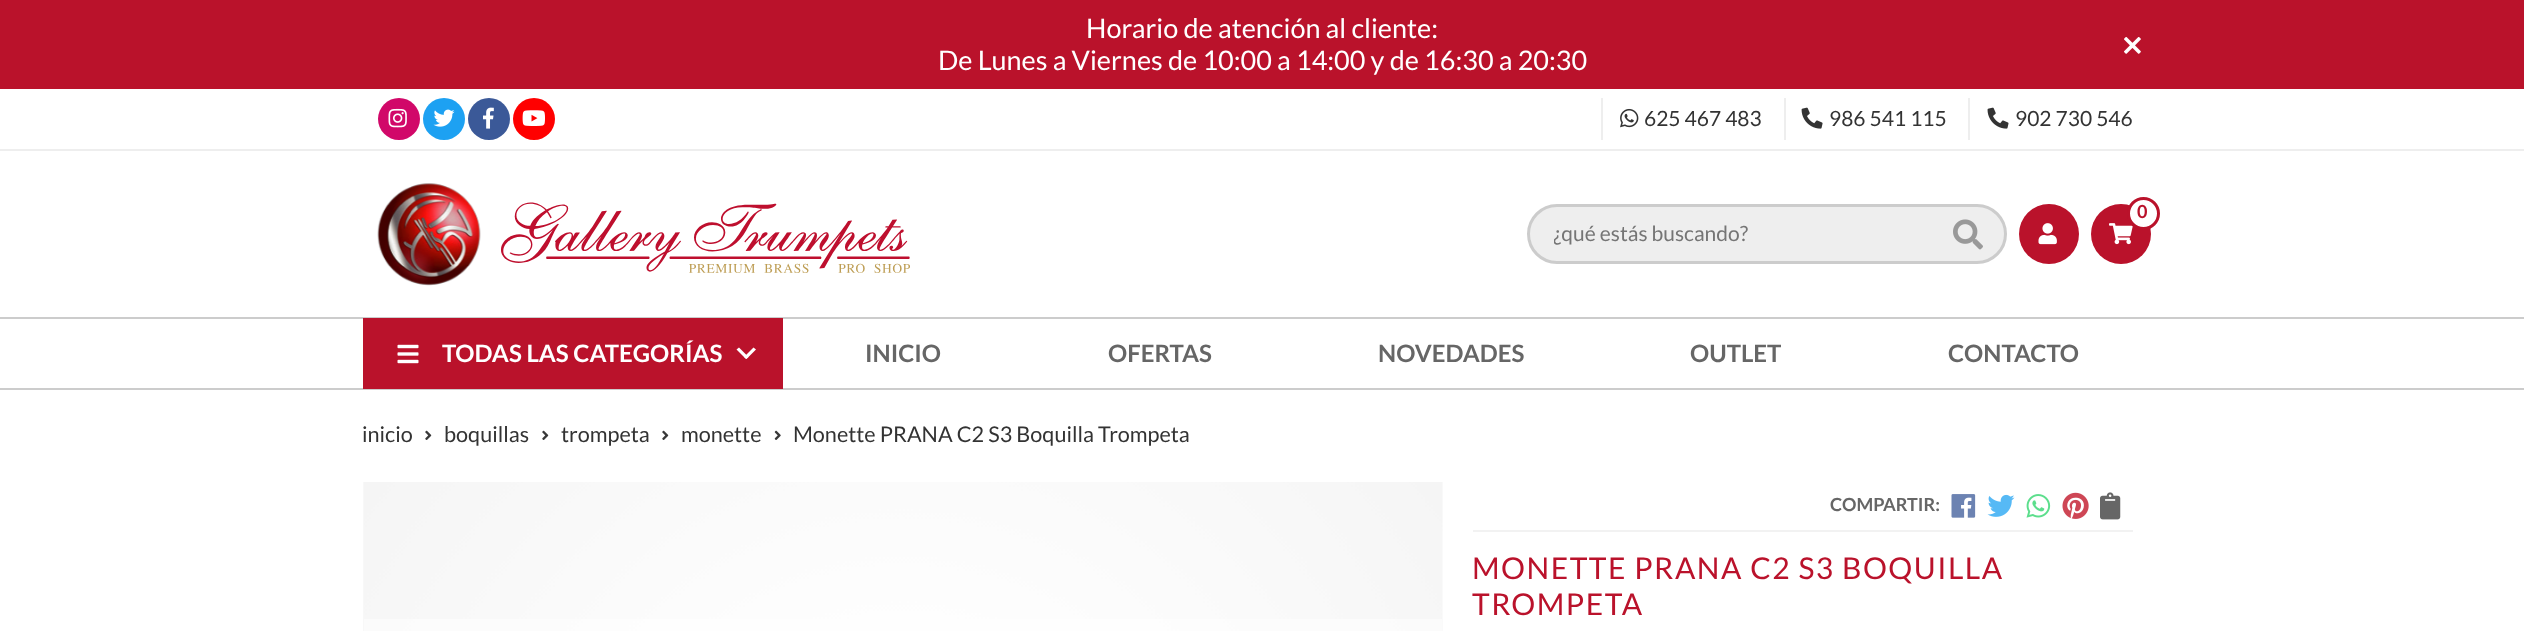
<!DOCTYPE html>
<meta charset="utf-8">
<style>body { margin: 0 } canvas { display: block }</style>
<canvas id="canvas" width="2524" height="631"></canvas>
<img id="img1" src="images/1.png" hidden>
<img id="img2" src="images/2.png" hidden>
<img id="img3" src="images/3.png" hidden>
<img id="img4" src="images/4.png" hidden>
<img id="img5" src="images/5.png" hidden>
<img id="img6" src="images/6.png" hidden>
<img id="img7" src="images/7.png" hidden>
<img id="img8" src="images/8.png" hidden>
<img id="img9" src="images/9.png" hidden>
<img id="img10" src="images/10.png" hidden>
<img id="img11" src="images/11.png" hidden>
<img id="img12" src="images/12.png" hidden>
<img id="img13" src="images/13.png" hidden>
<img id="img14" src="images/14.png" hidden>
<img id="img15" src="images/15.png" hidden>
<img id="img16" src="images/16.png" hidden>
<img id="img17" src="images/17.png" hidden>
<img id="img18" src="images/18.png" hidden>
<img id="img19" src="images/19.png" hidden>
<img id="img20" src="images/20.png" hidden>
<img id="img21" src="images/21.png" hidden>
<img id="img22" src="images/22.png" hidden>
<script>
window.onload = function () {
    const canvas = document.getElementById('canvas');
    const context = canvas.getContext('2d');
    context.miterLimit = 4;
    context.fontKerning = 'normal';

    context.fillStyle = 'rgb(255, 255, 255)';
    context.fillRect(0, 0, 2524, 631);
    context.fillStyle = 'rgb(186, 18, 43)';
    context.fillRect(0, 0, 2524, 89);
    context.drawImage(document.getElementById('img1'), 2124, 37, 17, 17);
    context.fillStyle = 'rgb(238, 238, 238)';
    context.fillRect(0, 149, 2524, 2);
    context.fillStyle = 'rgb(209, 8, 105)';
    context.beginPath();
    context.arc(399, 119, 21, 0, 2 * Math.PI);
    context.fill();
    context.drawImage(document.getElementById('img2'), 388, 108, 19, 20);
    context.fillStyle = 'rgb(29, 161, 242)';
    context.beginPath();
    context.arc(444, 119, 21, 0, 2 * Math.PI);
    context.fill();
    context.drawImage(document.getElementById('img3'), 433, 109, 22, 18);
    context.fillStyle = 'rgb(59, 89, 152)';
    context.beginPath();
    context.arc(489, 119, 21, 0, 2 * Math.PI);
    context.fill();
    context.drawImage(document.getElementById('img4'), 483, 107, 11, 22);
    context.fillStyle = 'rgb(255, 0, 0)';
    context.beginPath();
    context.arc(534, 119, 21, 0, 2 * Math.PI);
    context.fill();
    context.drawImage(document.getElementById('img5'), 522, 110, 23, 16);
    context.fillStyle = 'rgb(238, 238, 238)';
    context.fillRect(1601, 98, 2, 42);
    context.drawImage(document.getElementById('img6'), 1620, 108, 19, 20);
    context.fillRect(1784, 98, 2, 42);
    context.drawImage(document.getElementById('img7'), 1801, 107, 22, 22);
    context.fillRect(1968, 98, 2, 42);
    context.drawImage(document.getElementById('img8'), 1987, 107, 22, 22);
    context.fillStyle = 'rgb(204, 204, 204)';
    context.fillRect(0, 317, 2524, 2);
    context.drawImage(document.getElementById('img9'), 377, 183, 533, 103);
    context.fillStyle = 'rgb(186, 18, 43)';
    context.beginPath();
    context.arc(2049, 234, 30, 0, 2 * Math.PI);
    context.fill();
    context.drawImage(document.getElementById('img10'), 2038, 223, 19, 22);
    context.beginPath();
    context.arc(2121, 234, 30, 0, 2 * Math.PI);
    context.fill();
    context.drawImage(document.getElementById('img11'), 2109, 223, 24, 22);
    context.fillStyle = 'rgb(255, 255, 255)';
    context.beginPath();
    context.arc(2143.5, 213.5, 15, 0, 2 * Math.PI);
    context.fill();
    context.strokeStyle = 'rgb(186, 18, 43)';
    context.lineWidth = 3;
    context.stroke();
    context.fillStyle = 'rgb(238, 238, 238)';
    context.beginPath();
    context.roundRect(1528.5, 205.5, 477, 57, 28.5);
    context.fill();
    context.strokeStyle = 'rgb(204, 204, 204)';
    context.stroke();
    context.drawImage(document.getElementById('img12'), 1953, 219, 30, 31);
    context.fillStyle = 'rgb(204, 204, 204)';
    context.beginPath();
    context.moveTo(0, 388);
    context.lineTo(0, 390);
    context.lineTo(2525, 390);
    context.lineTo(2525, 320);
    context.lineTo(2524, 320);
    context.lineTo(2524, 388);
    context.closePath();
    context.fill();
    context.fillStyle = 'rgb(186, 18, 43)';
    context.fillRect(363, 318, 420, 71);
    context.drawImage(document.getElementById('img13'), 397, 344, 22, 20);
    context.fillStyle = 'rgb(255, 255, 255)';
    context.beginPath();
    context.moveTo(739, 347.5);
    context.lineTo(748.5, 357);
    context.lineTo(746, 359);
    context.lineTo(736.5, 349.5);
    context.closePath();
    context.fill();
    context.beginPath();
    context.moveTo(744, 357);
    context.lineTo(753.5, 347.5);
    context.lineTo(756, 349.5);
    context.lineTo(746.5, 359);
    context.closePath();
    context.fill();
    context.drawImage(document.getElementById('img14'), 425, 430, 7, 10);
    context.drawImage(document.getElementById('img14'), 542, 430, 7, 10);
    context.drawImage(document.getElementById('img14'), 662, 430, 7, 10);
    context.drawImage(document.getElementById('img15'), 774, 430, 7, 10);
    context.fillStyle = 'rgb(248, 248, 248)';
    context.fillRect(363, 482, 1080, 149);
    context.drawImage(document.getElementById('img16'), 364, 482, 1079, 149);
    context.drawImage(document.getElementById('img17'), 364, 482, 1078, 137);
    context.fillStyle = 'rgb(242, 242, 242)';
    context.fillRect(1473, 530, 660, 2);
    context.drawImage(document.getElementById('img18'), 1951, 494, 25, 24);
    context.drawImage(document.getElementById('img19'), 1987, 494, 28, 23);
    context.drawImage(document.getElementById('img20'), 2026, 494, 25, 24);
    context.drawImage(document.getElementById('img21'), 2062, 492, 27, 27);
    context.drawImage(document.getElementById('img22'), 2100, 492, 21, 28);
    context.font = '27px Lato';
    context.fillStyle = 'rgb(255, 255, 255)';
    context.fillText('Horario de atención al cliente:', 1086, 38);
    context.fillText('De Lunes a Viernes de 10:00 a 14:00 y de 16:30 a 20:30', 938, 70);
    context.font = '21px Lato';
    context.fillStyle = 'rgb(51, 51, 51)';
    context.fillText('625 467 483', 1644, 126);
    context.fillText('986 541 115', 1829, 126);
    context.fillText('902 730 546', 2015, 126);
    context.font = 'bold 18px Lato';
    context.fillStyle = 'rgb(186, 18, 43)';
    context.fillText('0', 2137, 218);
    context.save();
    context.beginPath();
    context.rect(1554, 221, 396, 25);
    context.clip();
    context.font = '21px Lato';
    context.fillStyle = 'rgb(117, 117, 117)';
    context.fillText('¿qué estás buscando?', 1553, 241);
    context.restore();
    context.font = 'bold 24px Lato';
    context.fillStyle = 'rgb(255, 255, 255)';
    context.fillText('TODAS LAS CATEGORÍAS', 442, 362);
    context.fillStyle = 'rgb(102, 102, 102)';
    context.fillText('INICIO', 865, 362);
    context.fillText('OFERTAS', 1108, 362);
    context.fillText('NOVEDADES', 1378, 362);
    context.fillText('OUTLET', 1690, 362);
    context.fillText('CONTACTO', 1948, 362);
    context.font = '21.6px Lato';
    context.fillStyle = 'rgb(51, 51, 51)';
    context.fillText('inicio', 362, 442);
    context.fillText('boquillas', 444, 442);
    context.fillText('trompeta', 561, 442);
    context.fillText('monette', 681, 442);
    context.fillText('Monette PRANA C2 S3 Boquilla Trompeta', 793, 442);
    context.font = 'bold 18px Lato';
    context.fillStyle = 'rgb(102, 102, 102)';
    context.fillText('COMPARTIR:', 1830, 511);
    context.letterSpacing = '1.5px';
    context.font = '30px Lato';
    context.fillStyle = 'rgb(186, 18, 43)';
    context.fillText('MONETTE PRANA C2 S3 BOQUILLA', 1472, 579);
    context.fillText('TROMPETA', 1472, 615);
};
</script>
